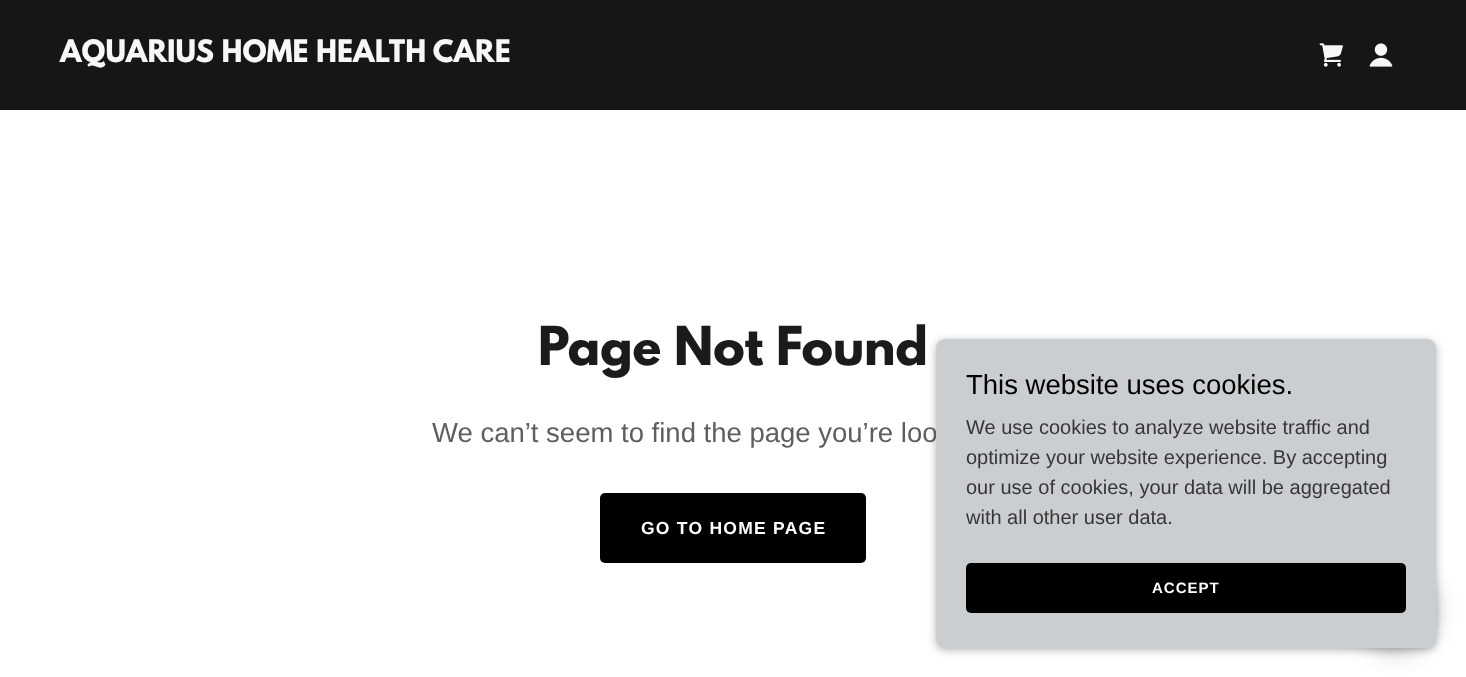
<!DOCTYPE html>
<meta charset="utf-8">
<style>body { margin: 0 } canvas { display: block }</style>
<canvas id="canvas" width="1466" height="677"></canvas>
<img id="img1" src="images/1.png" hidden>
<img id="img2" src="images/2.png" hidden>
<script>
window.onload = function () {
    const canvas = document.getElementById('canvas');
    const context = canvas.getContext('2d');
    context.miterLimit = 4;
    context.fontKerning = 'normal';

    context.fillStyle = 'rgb(22, 22, 22)';
    context.fillRect(0, 0, 1466, 677);
    context.drawImage(document.getElementById('img1'), 1319, 43, 24, 24);
    context.drawImage(document.getElementById('img2'), 1369, 43, 24, 24);
    context.fillStyle = 'rgb(255, 255, 255)';
    context.fillRect(0, 110, 1466, 567);
    context.fillStyle = 'rgb(0, 0, 0)';
    context.beginPath();
    context.roundRect(600, 493, 266, 70, 5);
    context.fill();
    context.fillStyle = 'rgba(0, 0, 0, 0.3)';
    context.filter = 'blur(4px)';
    context.beginPath();
    context.roundRect(936, 341, 500, 309, 9);
    context.fill();
    context.filter = 'none';
    context.fillStyle = 'rgba(0, 0, 0, 0.25)';
    context.filter = 'blur(11px)';
    context.beginPath();
    context.roundRect(1355, 570, 81, 81, 40.5);
    context.fill();
    context.filter = 'none';
    context.font = 'bold 27.5px League Spartan';
    context.fillStyle = 'rgb(247, 247, 247)';
    context.fillText('AQUARIUS HOME HEALTH CARE', 60, 62);
    context.font = 'bold 47.5px League Spartan';
    context.fillStyle = 'rgb(27, 27, 27)';
    context.fillText('Page Not Found', 538, 365);
    context.font = '27.5px Liberation Sans';
    context.fillStyle = 'rgb(94, 94, 94)';
    context.fillText('We can’t seem to find the page you’re loo', 432, 442);
    context.letterSpacing = '1.25px';
    context.font = 'bold 17.5px Liberation Sans';
    context.fillStyle = 'rgb(255, 255, 255)';
    context.fillText('GO TO HOME PAGE', 641, 534);
    context.fillStyle = 'rgb(203, 206, 209)';
    context.beginPath();
    context.roundRect(936, 339, 500, 309, 9);
    context.fill();
    context.letterSpacing = '0px';
    context.font = '27.5px Liberation Sans';
    context.fillStyle = 'rgb(0, 0, 0)';
    context.fillText('This website uses cookies.', 966, 394);
    context.font = '20px Liberation Sans';
    context.fillStyle = 'rgb(54, 54, 55)';
    context.fillText('We use cookies to analyze website traffic and', 966, 434);
    context.fillText('optimize your website experience. By accepting', 966, 464);
    context.fillText('our use of cookies, your data will be aggregated', 966, 494);
    context.fillText('with all other user data.', 966, 524);
    context.fillStyle = 'rgb(0, 0, 0)';
    context.beginPath();
    context.roundRect(966, 563, 440, 50, 5);
    context.fill();
    context.letterSpacing = '1px';
    context.font = 'bold 15px Liberation Sans';
    context.fillStyle = 'rgb(255, 255, 255)';
    context.fillText('ACCEPT', 1152, 593);
};
</script>
